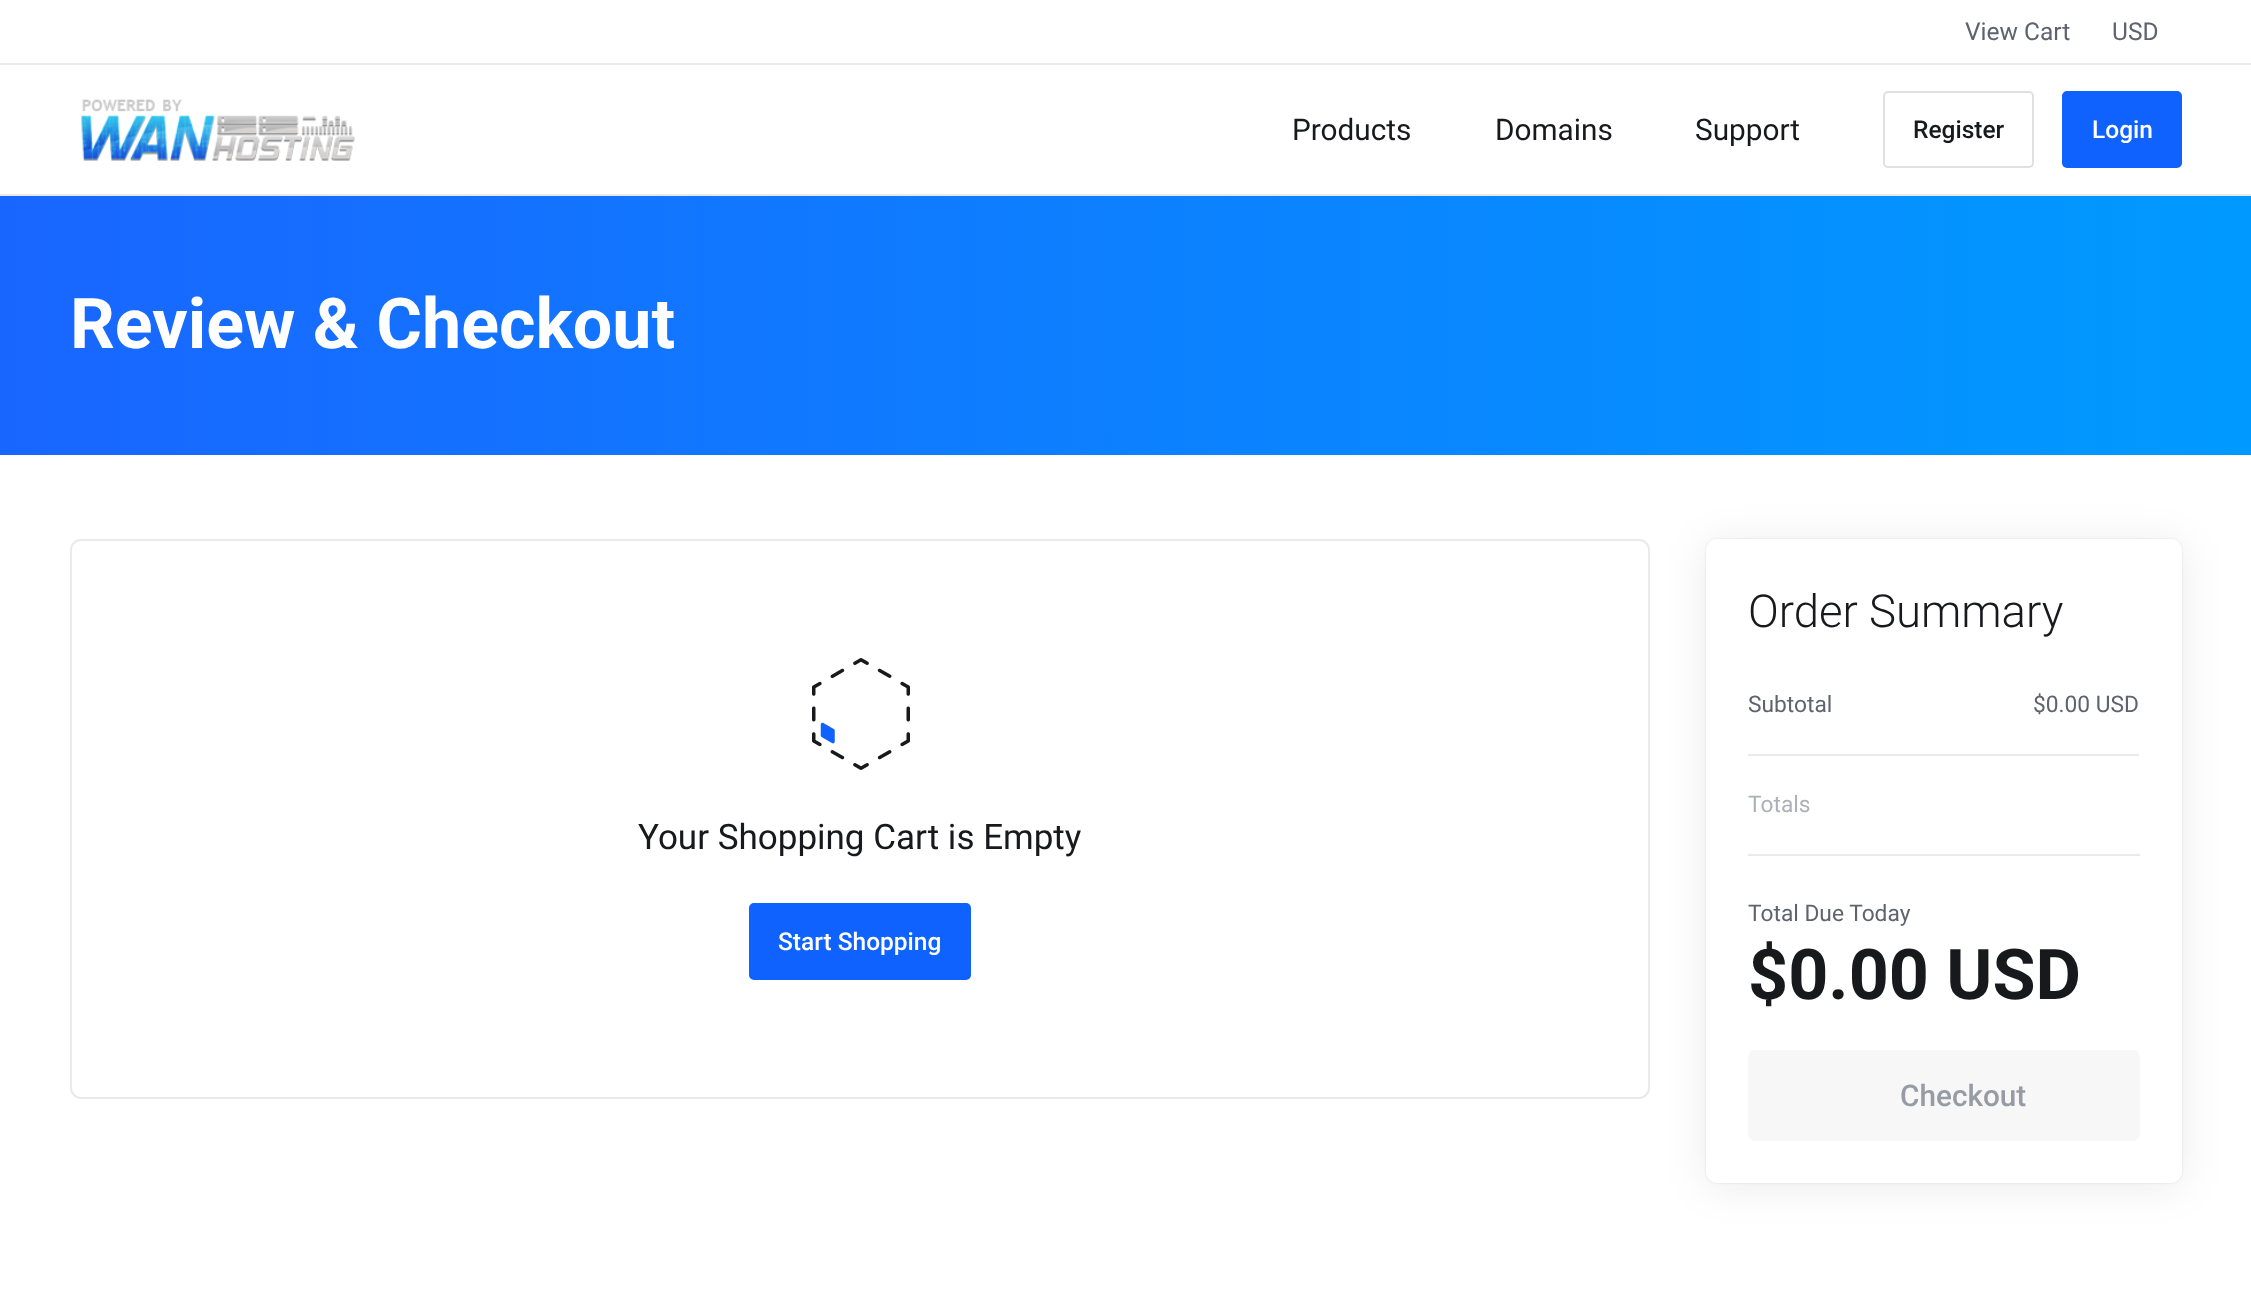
<!DOCTYPE html>
<meta charset="utf-8">
<style>body { margin: 0 } canvas { display: block }</style>
<canvas id="canvas" width="2251" height="1289"></canvas>
<img id="img1" src="images/1.png" hidden>
<img id="img2" src="images/2.png" hidden>
<script>
window.onload = function () {
    const canvas = document.getElementById('canvas');
    const context = canvas.getContext('2d');
    context.miterLimit = 4;
    context.fontKerning = 'normal';
    let gradient;

    context.fillStyle = 'rgb(255, 255, 255)';
    context.fillRect(0, 0, 2251, 1289);
    context.fillStyle = 'rgb(233, 234, 236)';
    context.fillRect(0, 194, 2251, 2);
    context.fillRect(0, 63, 2251, 2);
    context.drawImage(document.getElementById('img1'), 81, 99, 274, 62);
    context.beginPath();
    context.roundRect(1884, 92, 149, 75, 4);
    context.strokeStyle = 'rgb(222, 224, 227)';
    context.lineWidth = 2;
    context.stroke();
    context.fillStyle = 'rgb(16, 98, 254)';
    context.beginPath();
    context.roundRect(2063, 92, 118, 75, 4);
    context.fill();
    context.strokeStyle = 'rgb(16, 98, 254)';
    context.stroke();
    gradient = context.createLinearGradient(0, 326, 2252, 325);
    gradient.addColorStop(0, 'rgb(25, 102, 255)');
    gradient.addColorStop(1, 'rgb(0, 154, 255)');
    context.fillStyle = gradient;
    context.fillRect(0, 196, 2251, 259);
    context.beginPath();
    context.roundRect(71, 540, 1578, 558, 10);
    context.strokeStyle = 'rgb(233, 234, 236)';
    context.stroke();
    context.drawImage(document.getElementById('img2'), 812, 658, 98, 112);
    context.fillStyle = 'rgb(16, 98, 254)';
    context.beginPath();
    context.roundRect(750, 904, 220, 75, 4);
    context.fill();
    context.strokeStyle = 'rgb(16, 98, 254)';
    context.stroke();
    context.fillStyle = 'rgba(0, 0, 0, 0.08)';
    context.filter = 'blur(21px)';
    context.beginPath();
    context.roundRect(1706, 543, 476, 644, 11);
    context.fill();
    context.filter = 'none';
    context.fillStyle = 'rgba(0, 0, 0, 0.1)';
    context.filter = 'blur(1px)';
    context.beginPath();
    context.roundRect(1706, 539, 476, 644, 11);
    context.fill();
    context.filter = 'none';
    context.fillStyle = 'rgb(255, 255, 255)';
    context.beginPath();
    context.roundRect(1706, 539, 476, 644, 11);
    context.fill();
    context.fillStyle = 'rgb(233, 234, 236)';
    context.fillRect(1748, 754, 391, 2);
    context.fillRect(1748, 854, 392, 2);
    context.fillStyle = 'rgb(247, 247, 248)';
    context.beginPath();
    context.roundRect(1748, 1050, 392, 91, 7);
    context.fill();
    context.font = '24.5px Roboto';
    context.fillStyle = 'rgb(94, 99, 110)';
    context.fillText('View Cart', 1965, 40);
    context.fillText('USD', 2112, 40);
    context.font = '29.75px Roboto';
    context.fillStyle = 'rgb(23, 25, 28)';
    context.fillText('Products', 1292, 140);
    context.fillText('Domains', 1495, 140);
    context.fillText('Support', 1695, 140);
    context.font = '500 24.5px Roboto';
    context.fillText('Register', 1913, 138);
    context.fillStyle = 'rgb(255, 255, 255)';
    context.fillText('Login', 2092, 138);
    context.font = 'bold 70px Roboto';
    context.fillText('Review & Checkout', 70, 348);
    context.font = '35px Roboto';
    context.fillStyle = 'rgb(23, 25, 28)';
    context.fillText('Your Shopping Cart is Empty', 638, 849);
    context.font = '500 24.5px Roboto';
    context.fillStyle = 'rgb(255, 255, 255)';
    context.fillText('Start Shopping', 778, 950);
    context.font = '300 45.5px Roboto';
    context.fillStyle = 'rgb(23, 25, 28)';
    context.fillText('Order Summary', 1748, 627);
    context.font = '22.75px Roboto';
    context.fillStyle = 'rgb(94, 99, 110)';
    context.fillText('Subtotal', 1748, 712);
    context.fillText('$0.00 USD', 2033, 712);
    context.fillStyle = 'rgb(172, 176, 185)';
    context.fillText('Totals', 1748, 812);
    context.fillStyle = 'rgb(94, 99, 110)';
    context.fillText('Total Due Today', 1748, 921);
    context.font = 'bold 70px Roboto';
    context.fillStyle = 'rgb(23, 25, 28)';
    context.fillText('$0.00 USD', 1748, 999);
    context.font = '500 29.75px Roboto';
    context.fillStyle = 'rgb(151, 155, 164)';
    context.fillText('Checkout', 1900, 1106);
};
</script>
